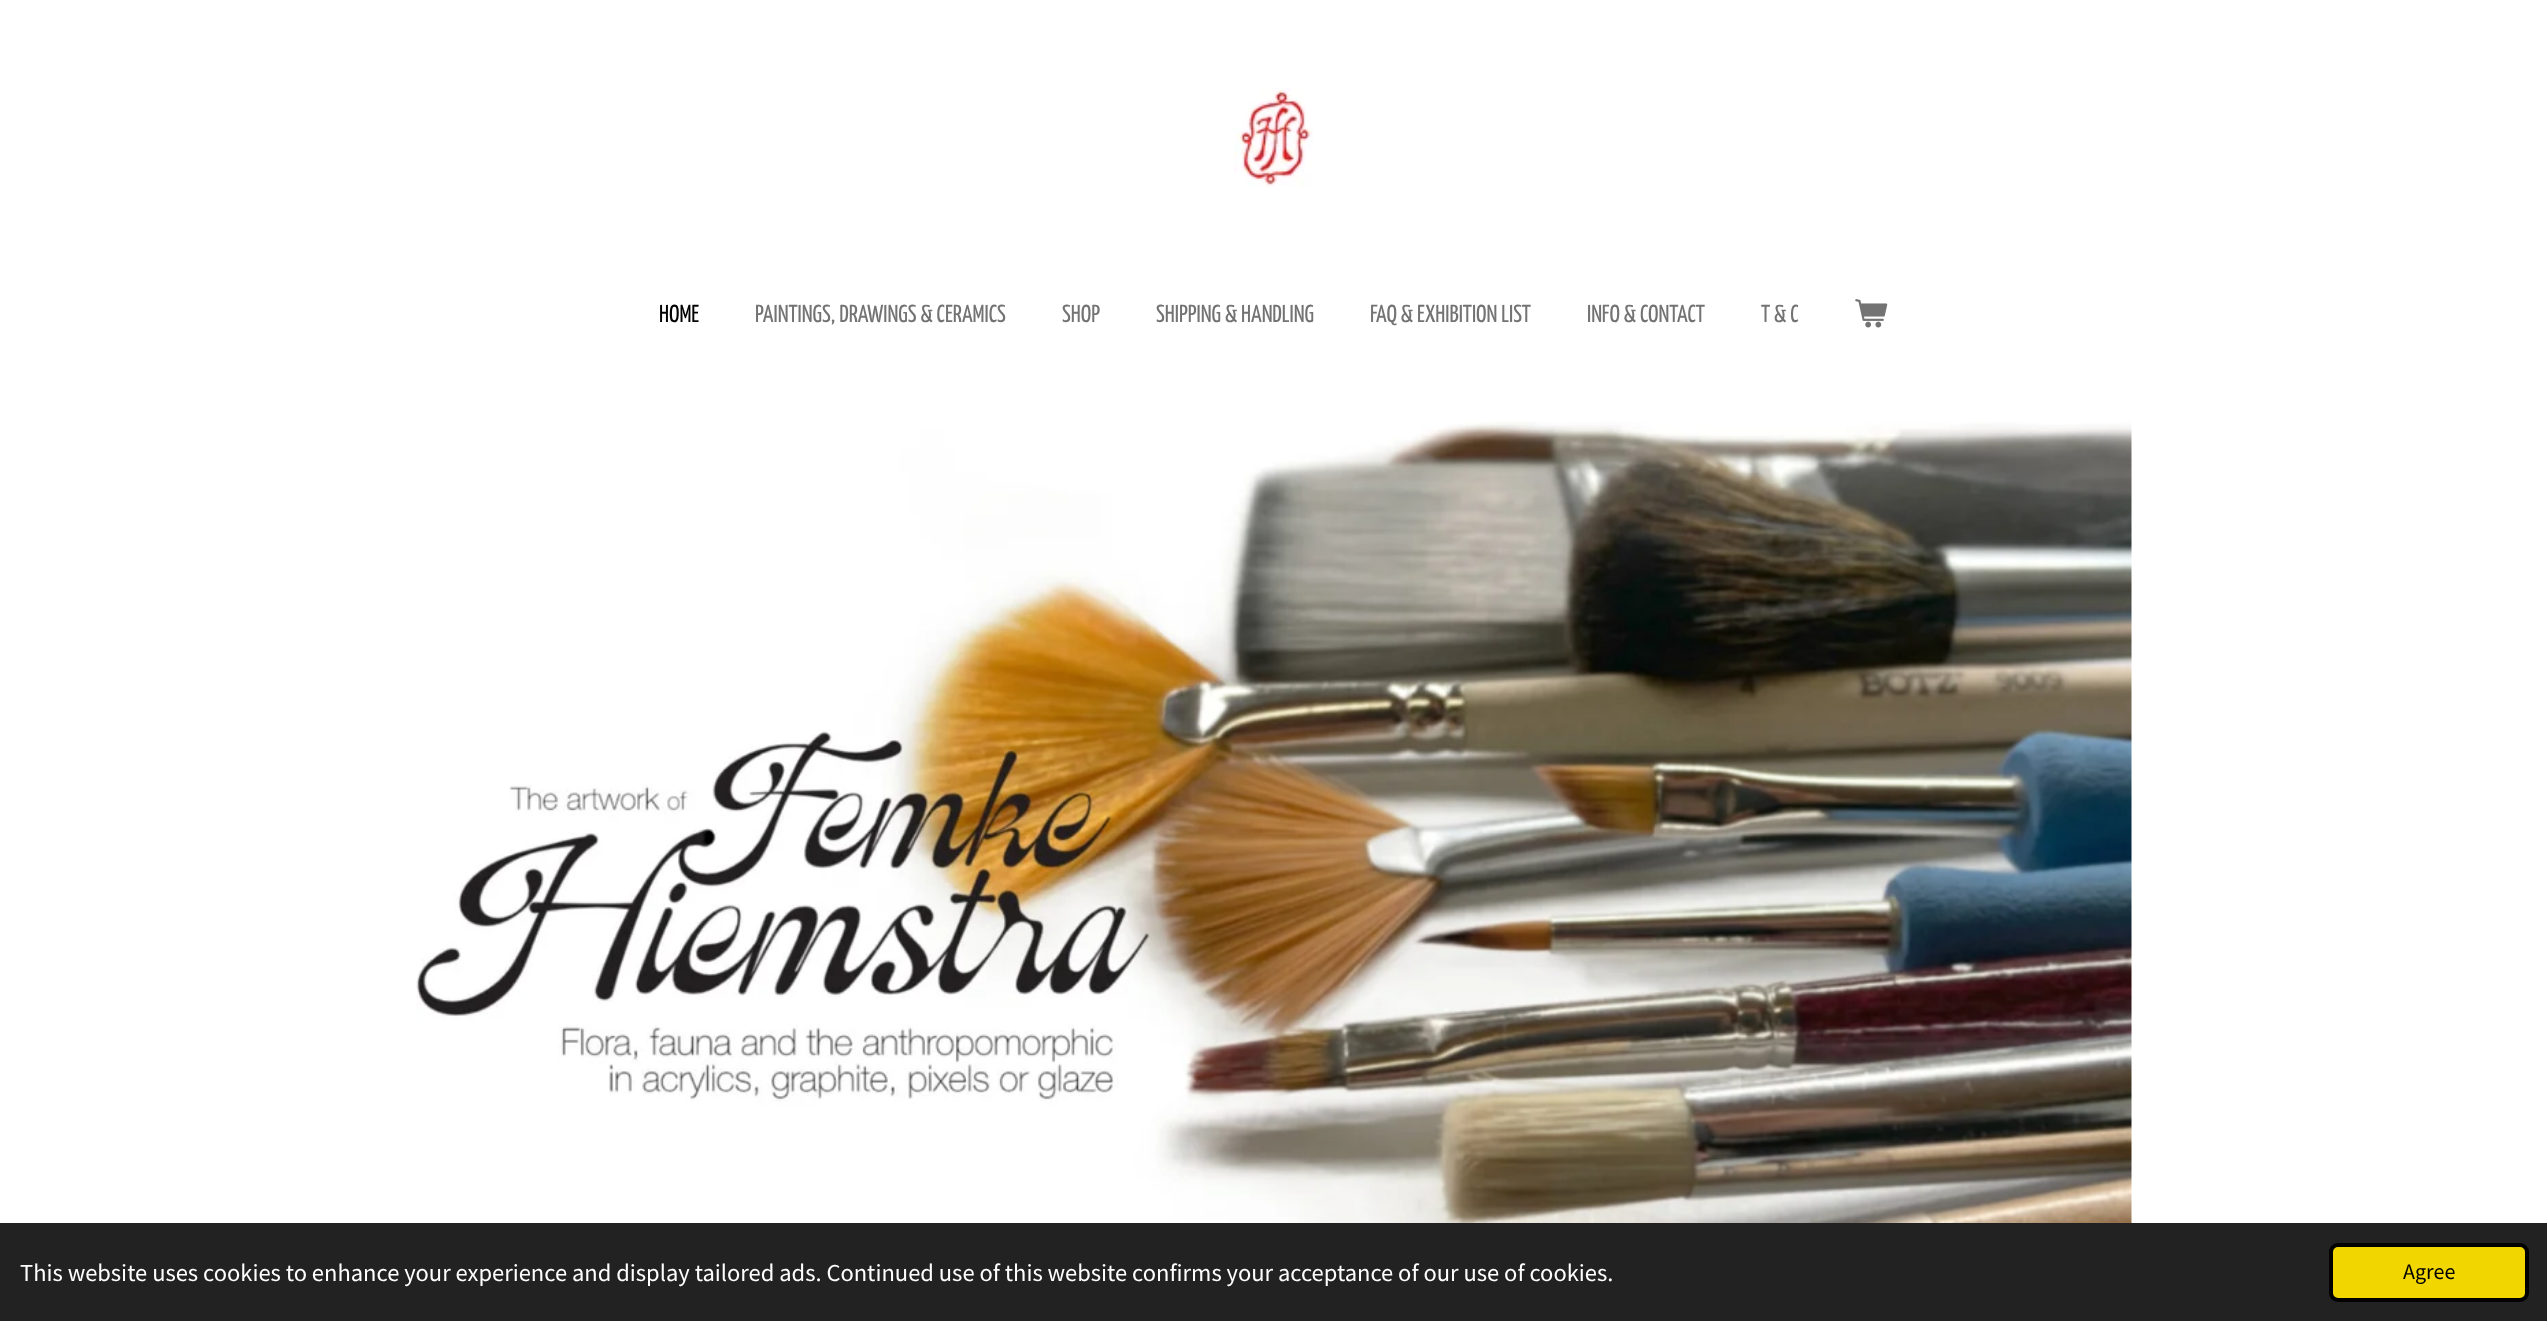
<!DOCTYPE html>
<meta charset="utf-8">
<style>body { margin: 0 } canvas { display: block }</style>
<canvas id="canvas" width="2547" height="1321"></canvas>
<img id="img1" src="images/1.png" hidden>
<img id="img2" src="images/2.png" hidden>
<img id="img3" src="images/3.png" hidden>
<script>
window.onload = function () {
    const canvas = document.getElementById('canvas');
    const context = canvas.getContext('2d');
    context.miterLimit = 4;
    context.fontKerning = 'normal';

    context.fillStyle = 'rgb(255, 255, 255)';
    context.fillRect(0, 0, 2547, 1321);
    context.drawImage(document.getElementById('img1'), 1234, 87, 79, 100);
    context.drawImage(document.getElementById('img2'), 1855, 299, 33, 29);
    context.drawImage(document.getElementById('img3'), 416, 421, 1716, 802);
    context.fillStyle = 'rgb(34, 34, 34)';
    context.fillRect(0, 1223, 2547, 98);
    context.fillStyle = 'rgb(241, 214, 0)';
    context.beginPath();
    context.roundRect(2331, 1245, 196, 55, 7);
    context.fill();
    context.strokeStyle = 'rgb(0, 0, 0)';
    context.lineWidth = 4;
    context.stroke();
    context.font = '200 24.5px Yanone Kaffeesatz';
    context.fillStyle = 'rgb(0, 0, 0)';
    context.fillText('HOME', 659, 322);
    context.fillStyle = 'rgb(115, 115, 115)';
    context.fillText('PAINTINGS, DRAWINGS & CERAMICS', 755, 322);
    context.fillText('SHOP', 1062, 322);
    context.fillText('SHIPPING & HANDLING', 1156, 322);
    context.fillText('FAQ & EXHIBITION LIST', 1370, 322);
    context.fillText('INFO & CONTACT', 1587, 322);
    context.fillText('T & C', 1761, 322);
    context.font = '24.5px Source Sans Pro';
    context.fillStyle = 'rgb(255, 255, 255)';
    context.fillText('This website uses cookies to enhance your experience and display tailored ads. Continued use of this website confirms your acceptance of our use of cookies.', 20, 1281);
    context.font = '22px Source Sans Pro';
    context.fillStyle = 'rgb(0, 0, 0)';
    context.fillText('Agree', 2403, 1279);
};
</script>
